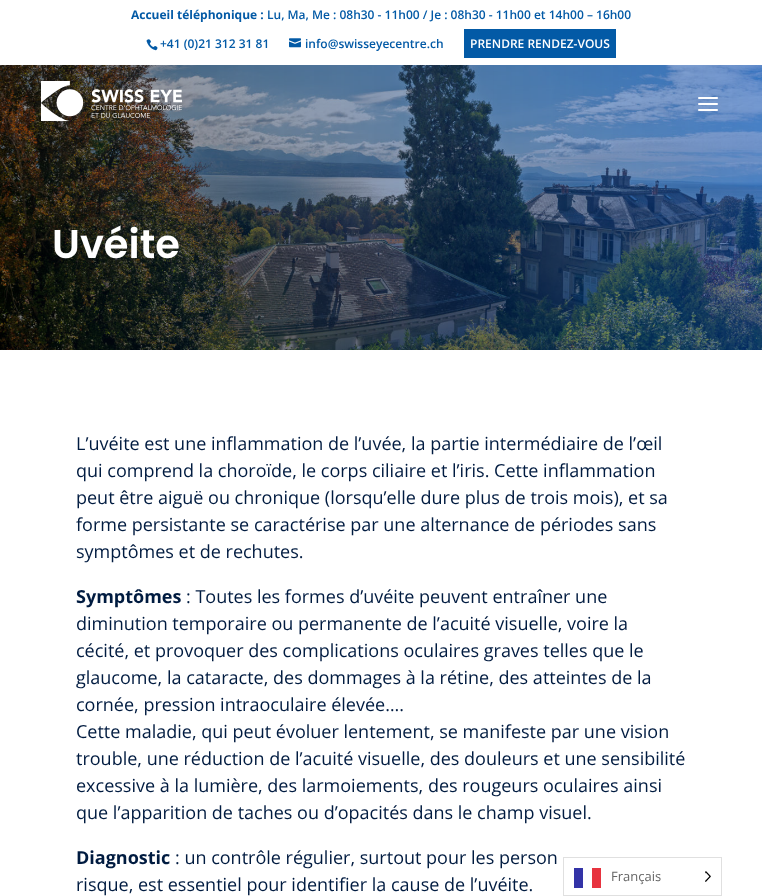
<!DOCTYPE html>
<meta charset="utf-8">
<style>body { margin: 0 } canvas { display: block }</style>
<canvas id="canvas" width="762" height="896"></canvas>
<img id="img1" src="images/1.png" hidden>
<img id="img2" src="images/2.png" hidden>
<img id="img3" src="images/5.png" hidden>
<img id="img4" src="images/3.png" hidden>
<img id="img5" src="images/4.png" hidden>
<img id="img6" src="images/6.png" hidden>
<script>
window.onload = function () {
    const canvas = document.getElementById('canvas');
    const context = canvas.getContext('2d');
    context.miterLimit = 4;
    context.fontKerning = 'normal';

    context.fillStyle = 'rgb(255, 255, 255)';
    context.fillRect(0, 0, 762, 896);
    context.drawImage(document.getElementById('img1'), 146, 39, 12, 12);
    context.drawImage(document.getElementById('img2'), 289, 38, 12, 10);
    context.fillStyle = 'rgb(3, 90, 166)';
    context.fillRect(464, 29, 152, 29);
    context.drawImage(document.getElementById('img3'), 0, 65, 762, 285);
    context.drawImage(document.getElementById('img4'), 41, 81, 141, 40);
    context.drawImage(document.getElementById('img5'), 698, 97, 20, 14);
    context.strokeStyle = 'rgb(224, 224, 224)';
    context.strokeRect(563.5, 857.5, 158, 38);
    context.fillStyle = 'rgb(51, 51, 167)';
    context.fillRect(574, 868, 9, 20);
    context.fillStyle = 'rgb(231, 51, 63)';
    context.fillRect(592, 868, 9, 20);
    context.drawImage(document.getElementById('img6'), 705, 871, 6, 11);
    context.font = 'bold 12px Open Sans';
    context.fillStyle = 'rgb(3, 90, 166)';
    context.fillText('Accueil téléphonique :', 131, 19);
    context.font = '600 12px Open Sans';
    context.fillText('Lu, Ma, Me : 08h30 - 11h00 / Je : 08h30 - 11h00 et 14h00 – 16h00', 267, 19);
    context.fillText('+41 (0)21 312 31 81', 160, 48);
    context.fillText('info@swisseyecentre.ch', 305, 48);
    context.fillStyle = 'rgb(255, 255, 255)';
    context.fillText('PRENDRE RENDEZ-VOUS', 470, 48);
    context.font = '600 40px Poppins';
    context.fillText('Uvéite', 52, 258);
    context.font = '18px Open Sans';
    context.fillStyle = 'rgb(0, 27, 64)';
    context.fillText('L’uvéite est une inflammation de l’uvée, la partie intermédiaire de l’œil', 76, 450);
    context.fillText('qui comprend la choroïde, le corps ciliaire et l’iris. Cette inflammation', 76, 477);
    context.fillText('peut être aiguë ou chronique (lorsqu’elle dure plus de trois mois), et sa', 76, 504);
    context.fillText('forme persistante se caractérise par une alternance de périodes sans', 76, 531);
    context.fillText('symptômes et de rechutes.', 76, 558);
    context.font = 'bold 18px Open Sans';
    context.fillText('Symptômes', 76, 603);
    context.font = '18px Open Sans';
    context.fillText(': Toutes les formes d’uvéite peuvent entraîner une', 186, 603);
    context.fillText('diminution temporaire ou permanente de l’acuité visuelle, voire la', 76, 630);
    context.fillText('cécité, et provoquer des complications oculaires graves telles que le', 76, 657);
    context.fillText('glaucome, la cataracte, des dommages à la rétine, des atteintes de la', 76, 684);
    context.fillText('cornée, pression intraoculaire élevée….', 76, 711);
    context.fillText('Cette maladie, qui peut évoluer lentement, se manifeste par une vision', 76, 738);
    context.fillText('trouble, une réduction de l’acuité visuelle, des douleurs et une sensibilité', 76, 765);
    context.fillText('excessive à la lumière, des larmoiements, des rougeurs oculaires ainsi', 76, 792);
    context.fillText('que l’apparition de taches ou d’opacités dans le champ visuel.', 76, 819);
    context.font = 'bold 18px Open Sans';
    context.fillText('Diagnostic', 76, 864);
    context.font = '18px Open Sans';
    context.fillText(': un contrôle régulier, surtout pour les person', 175, 864);
    context.fillText('risque, est essentiel pour identifier la cause de l’uvéite.', 76, 891);
    context.font = '13px Open Sans';
    context.fillStyle = 'rgb(102, 102, 102)';
    context.fillText('Français', 611, 881);
};
</script>
